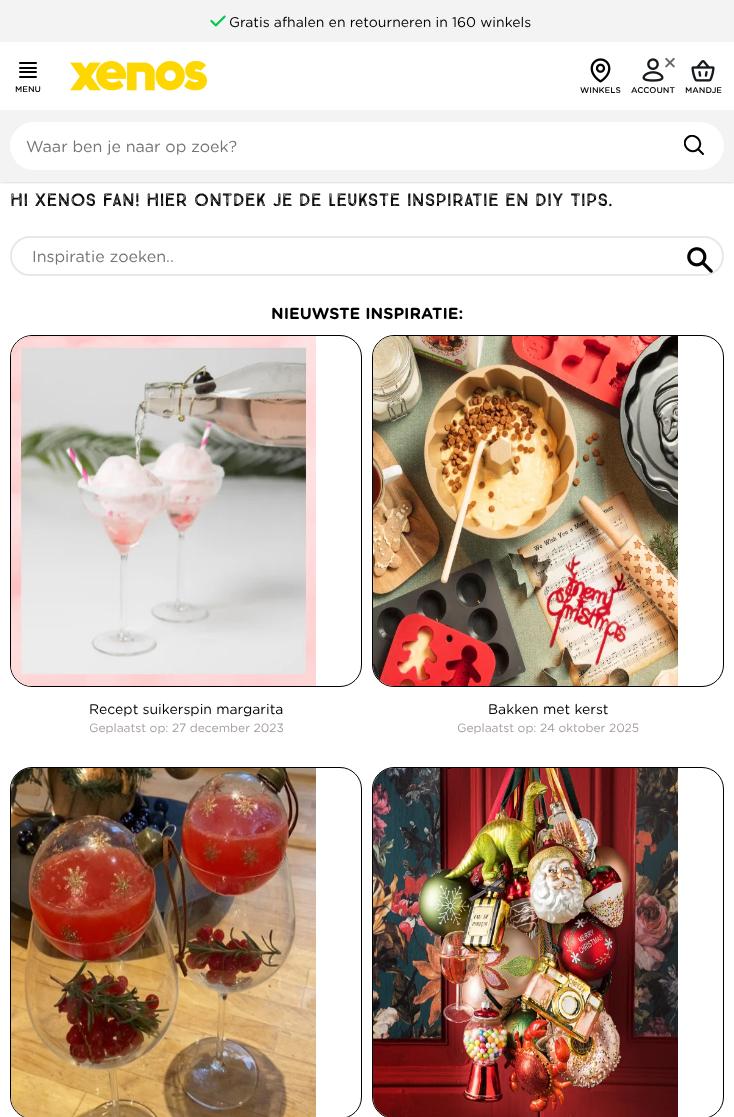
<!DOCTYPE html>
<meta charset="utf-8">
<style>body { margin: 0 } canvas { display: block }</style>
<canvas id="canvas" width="734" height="1117"></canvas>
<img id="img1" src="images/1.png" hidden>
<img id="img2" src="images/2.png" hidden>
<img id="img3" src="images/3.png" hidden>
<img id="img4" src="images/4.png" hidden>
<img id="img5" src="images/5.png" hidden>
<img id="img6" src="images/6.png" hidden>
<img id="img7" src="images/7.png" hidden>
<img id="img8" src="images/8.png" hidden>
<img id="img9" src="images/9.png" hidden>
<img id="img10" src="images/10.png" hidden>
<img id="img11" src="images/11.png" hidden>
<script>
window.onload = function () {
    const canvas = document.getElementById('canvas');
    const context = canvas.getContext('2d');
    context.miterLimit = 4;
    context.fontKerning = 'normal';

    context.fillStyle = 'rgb(255, 255, 255)';
    context.fillRect(0, 0, 734, 1117);
    context.fillStyle = 'rgb(244, 243, 243)';
    context.fillRect(0, 0, 734, 42);
    context.drawImage(document.getElementById('img1'), 210, 15, 16, 12);
    context.fillStyle = 'rgba(0, 0, 0, 0.25)';
    context.filter = 'blur(1.5px)';
    context.beginPath();
    context.rect(0, 110, 734, 72);
    context.fill();
    context.filter = 'none';
    context.fillStyle = 'rgb(255, 255, 255)';
    context.fillRect(0, 107, 734, 3);
    context.beginPath();
    context.moveTo(20, 63);
    context.lineTo(36, 63);
    context.moveTo(20, 68);
    context.lineTo(36, 68);
    context.moveTo(20, 72);
    context.lineTo(36, 72);
    context.moveTo(20, 77);
    context.lineTo(36, 77);
    context.strokeStyle = 'rgb(0, 0, 0)';
    context.lineWidth = 2;
    context.lineCap = 'round';
    context.lineJoin = 'round';
    context.stroke();
    context.drawImage(document.getElementById('img2'), 70, 61, 137, 30);
    context.drawImage(document.getElementById('img3'), 590, 58, 21, 25);
    context.drawImage(document.getElementById('img4'), 642, 58, 22, 24);
    context.drawImage(document.getElementById('img5'), 665, 57, 10, 11);
    context.drawImage(document.getElementById('img6'), 691, 60, 24, 22);
    context.fillStyle = 'rgb(244, 243, 243)';
    context.fillRect(0, 110, 734, 72);
    context.fillStyle = 'rgb(255, 255, 255)';
    context.beginPath();
    context.roundRect(10, 122, 714, 48, 24);
    context.fill();
    context.save();
    context.beginPath();
    context.rect(684, 135, 20, 20);
    context.clip();
    context.beginPath();
    context.moveTo(703, 154);
    context.lineTo(698, 149);
    context.moveTo(698, 149);
    context.bezierCurveTo(705, 142, 694, 131, 687, 138);
    context.bezierCurveTo(680, 145, 691, 156, 698, 149);
    context.closePath();
    context.stroke();
    context.restore();
    context.beginPath();
    context.roundRect(11, 237, 712, 38, 19);
    context.strokeStyle = 'rgb(234, 231, 232)';
    context.lineJoin = 'miter';
    context.stroke();
    context.drawImage(document.getElementById('img7'), 687, 247, 26, 26);
    context.beginPath();
    context.roundRect(10.5, 335.5, 351, 351, 21.5);
    context.strokeStyle = 'rgb(0, 0, 0)';
    context.lineWidth = 1;
    context.stroke();
    context.drawImage(document.getElementById('img8'), 11, 336, 305, 350);
    context.beginPath();
    context.roundRect(372.5, 335.5, 351, 351, 21.5);
    context.stroke();
    context.drawImage(document.getElementById('img9'), 373, 336, 305, 350);
    context.beginPath();
    context.roundRect(10.5, 767.5, 351, 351, 21.5);
    context.stroke();
    context.drawImage(document.getElementById('img10'), 11, 768, 305, 349);
    context.beginPath();
    context.roundRect(372.5, 767.5, 351, 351, 21.5);
    context.stroke();
    context.drawImage(document.getElementById('img11'), 373, 768, 305, 349);
    context.font = '14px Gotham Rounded';
    context.fillStyle = 'rgb(0, 0, 0)';
    context.fillText('Gratis afhalen en retourneren in 160 winkels', 229, 27);
    context.font = '500 8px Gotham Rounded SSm';
    context.fillText('MENU', 15, 92);
    context.fillText('WINKELS', 580, 93);
    context.fillText('ACCOUNT', 631, 93);
    context.fillText('MANDJE', 685, 93);
    context.font = '16px Gotham Rounded';
    context.fillStyle = 'rgb(117, 117, 117)';
    context.fillText('Waar ben je naar op zoek?', 26, 152);
    context.font = '18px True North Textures';
    context.fillStyle = 'rgb(0, 0, 0)';
    context.fillText('HI XENOS FAN! HIER ONTDEK JE DE LEUKSTE INSPIRATIE EN DIY TIPS.', 10, 206);
    context.font = '16px Gotham Rounded';
    context.fillStyle = 'rgb(117, 117, 117)';
    context.fillText('Inspiratie zoeken..', 32, 262);
    context.font = 'bold 16px Gotham Rounded';
    context.fillStyle = 'rgb(0, 0, 0)';
    context.fillText('NIEUWSTE INSPIRATIE:', 271, 319);
    context.font = '14px Gotham Rounded';
    context.fillText('Recept suikerspin margarita', 89, 714);
    context.font = '12px Gotham Rounded';
    context.fillStyle = 'rgb(165, 155, 158)';
    context.fillText('Geplaatst op: 27 december 2023', 89, 732);
    context.font = '14px Gotham Rounded';
    context.fillStyle = 'rgb(0, 0, 0)';
    context.fillText('Bakken met kerst', 488, 714);
    context.font = '12px Gotham Rounded';
    context.fillStyle = 'rgb(165, 155, 158)';
    context.fillText('Geplaatst op: 24 oktober 2025', 457, 732);
};
</script>
